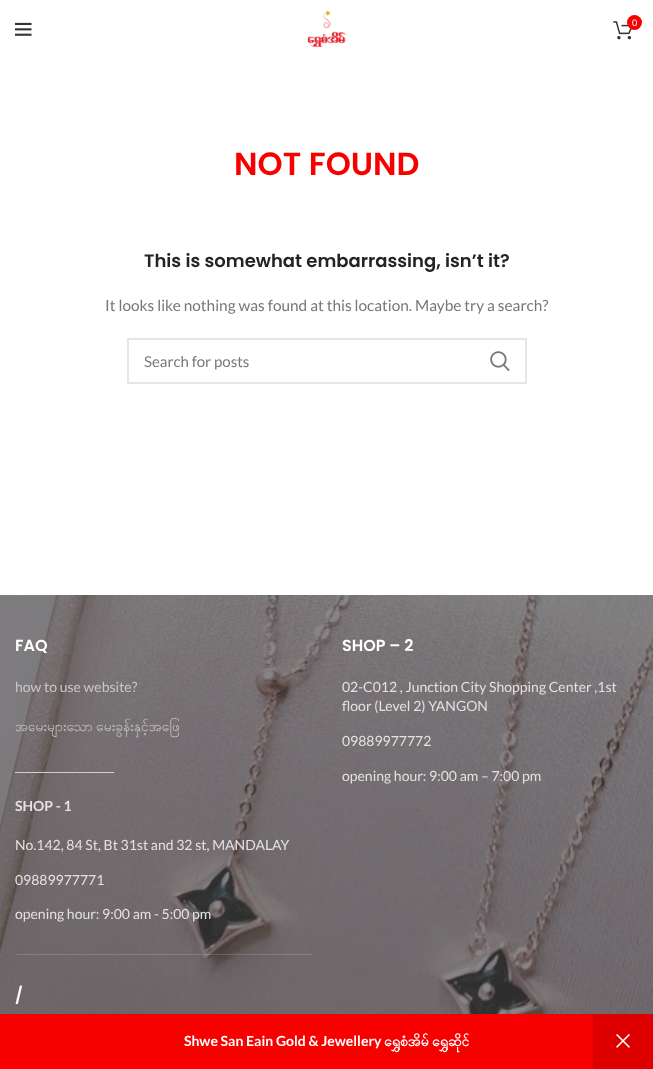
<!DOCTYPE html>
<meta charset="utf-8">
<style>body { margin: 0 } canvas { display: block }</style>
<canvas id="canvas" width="653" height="1069"></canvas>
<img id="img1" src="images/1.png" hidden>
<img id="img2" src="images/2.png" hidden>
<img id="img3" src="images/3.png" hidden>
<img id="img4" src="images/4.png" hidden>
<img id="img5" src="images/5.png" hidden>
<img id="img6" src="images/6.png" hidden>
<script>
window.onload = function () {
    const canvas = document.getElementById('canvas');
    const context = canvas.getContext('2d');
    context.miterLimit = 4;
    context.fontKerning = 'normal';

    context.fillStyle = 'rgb(255, 255, 255)';
    context.fillRect(0, 0, 653, 1069);
    context.drawImage(document.getElementById('img1'), 15, 22, 17, 14);
    context.drawImage(document.getElementById('img2'), 307, 10, 40, 37);
    context.drawImage(document.getElementById('img3'), 613, 21, 19, 19);
    context.fillStyle = 'rgb(247, 0, 0)';
    context.beginPath();
    context.arc(634.5, 22.5, 7.5, 0, 2 * Math.PI);
    context.fill();
    context.strokeStyle = 'rgb(230, 230, 230)';
    context.lineWidth = 2;
    context.strokeRect(128, 339, 398, 44);
    context.drawImage(document.getElementById('img4'), 490, 351, 20, 21);
    context.drawImage(document.getElementById('img5'), 0, 595, 653, 419);
    context.fillStyle = 'rgba(255, 255, 255, 0.15)';
    context.fillRect(15, 954, 297, 1);
    context.fillStyle = 'rgb(247, 0, 0)';
    context.fillRect(0, 1014, 593, 55);
    context.fillStyle = 'rgb(222, 0, 0)';
    context.fillRect(593, 1014, 60, 55);
    context.drawImage(document.getElementById('img6'), 616, 1034, 14, 14);
    context.font = '9px Lato';
    context.fillStyle = 'rgb(255, 255, 255)';
    context.fillText('0', 632, 26);
    context.font = '600 32px Poppins';
    context.fillStyle = 'rgb(247, 0, 0)';
    context.fillText('NOT FOUND', 234, 175);
    context.font = '600 18px Poppins';
    context.fillStyle = 'rgb(36, 36, 36)';
    context.fillText('This is somewhat embarrassing, isn’t it?', 144, 267);
    context.font = '15.4px Lato';
    context.fillStyle = 'rgb(119, 119, 119)';
    context.fillText('It looks like nothing was found at this location. Maybe try a search?', 105, 311);
    context.font = '15px Lato';
    context.fillText('Search for posts', 144, 367);
    context.font = '600 16px Poppins';
    context.fillStyle = 'rgb(255, 255, 255)';
    context.fillText('FAQ', 15, 651);
    context.font = '14px Lato';
    context.fillStyle = 'rgb(200, 198, 199)';
    context.fillText('how to use website?', 15, 692);
    context.wordSpacing = '-2px';
    context.font = '14px Padauk';
    context.fillText('အမေးများသော မေးခွန်းနှင့်အဖြေ', 15, 731);
    context.wordSpacing = '0px';
    context.font = '14px Lato';
    context.fillStyle = 'rgb(227, 225, 226)';
    context.fillText('__________________', 15, 771);
    context.font = 'bold 14px Lato';
    context.fillText('SHOP - 1', 15, 811);
    context.font = '14px Lato';
    context.fillText('No.142, 84 St, Bt 31st and 32 st, MANDALAY', 15, 850);
    context.fillText('09889977771', 15, 885);
    context.fillText('opening hour: 9:00 am - 5:00 pm', 15, 919);
    context.font = '600 16px Poppins';
    context.fillStyle = 'rgb(255, 255, 255)';
    context.fillText('/', 15, 1001);
    context.fillText('SHOP – 2', 342, 651);
    context.font = '14px Lato';
    context.fillStyle = 'rgb(227, 225, 226)';
    context.fillText('02-C012 , Junction City Shopping Center ,1st', 342, 692);
    context.fillText('floor (Level 2) YANGON', 342, 711);
    context.fillText('09889977772', 342, 746);
    context.fillText('opening hour: 9:00 am – 7:00 pm', 342, 781);
    context.font = 'bold 14px Lato';
    context.fillStyle = 'rgb(255, 255, 255)';
    context.fillText('Shwe San Eain Gold & Jewellery', 184, 1046);
    context.font = 'bold 14px Padauk';
    context.fillText('ရွှေစံအိမ်', 384, 1046);
    context.fillText('ရွှေဆိုင်', 432, 1046);
};
</script>
